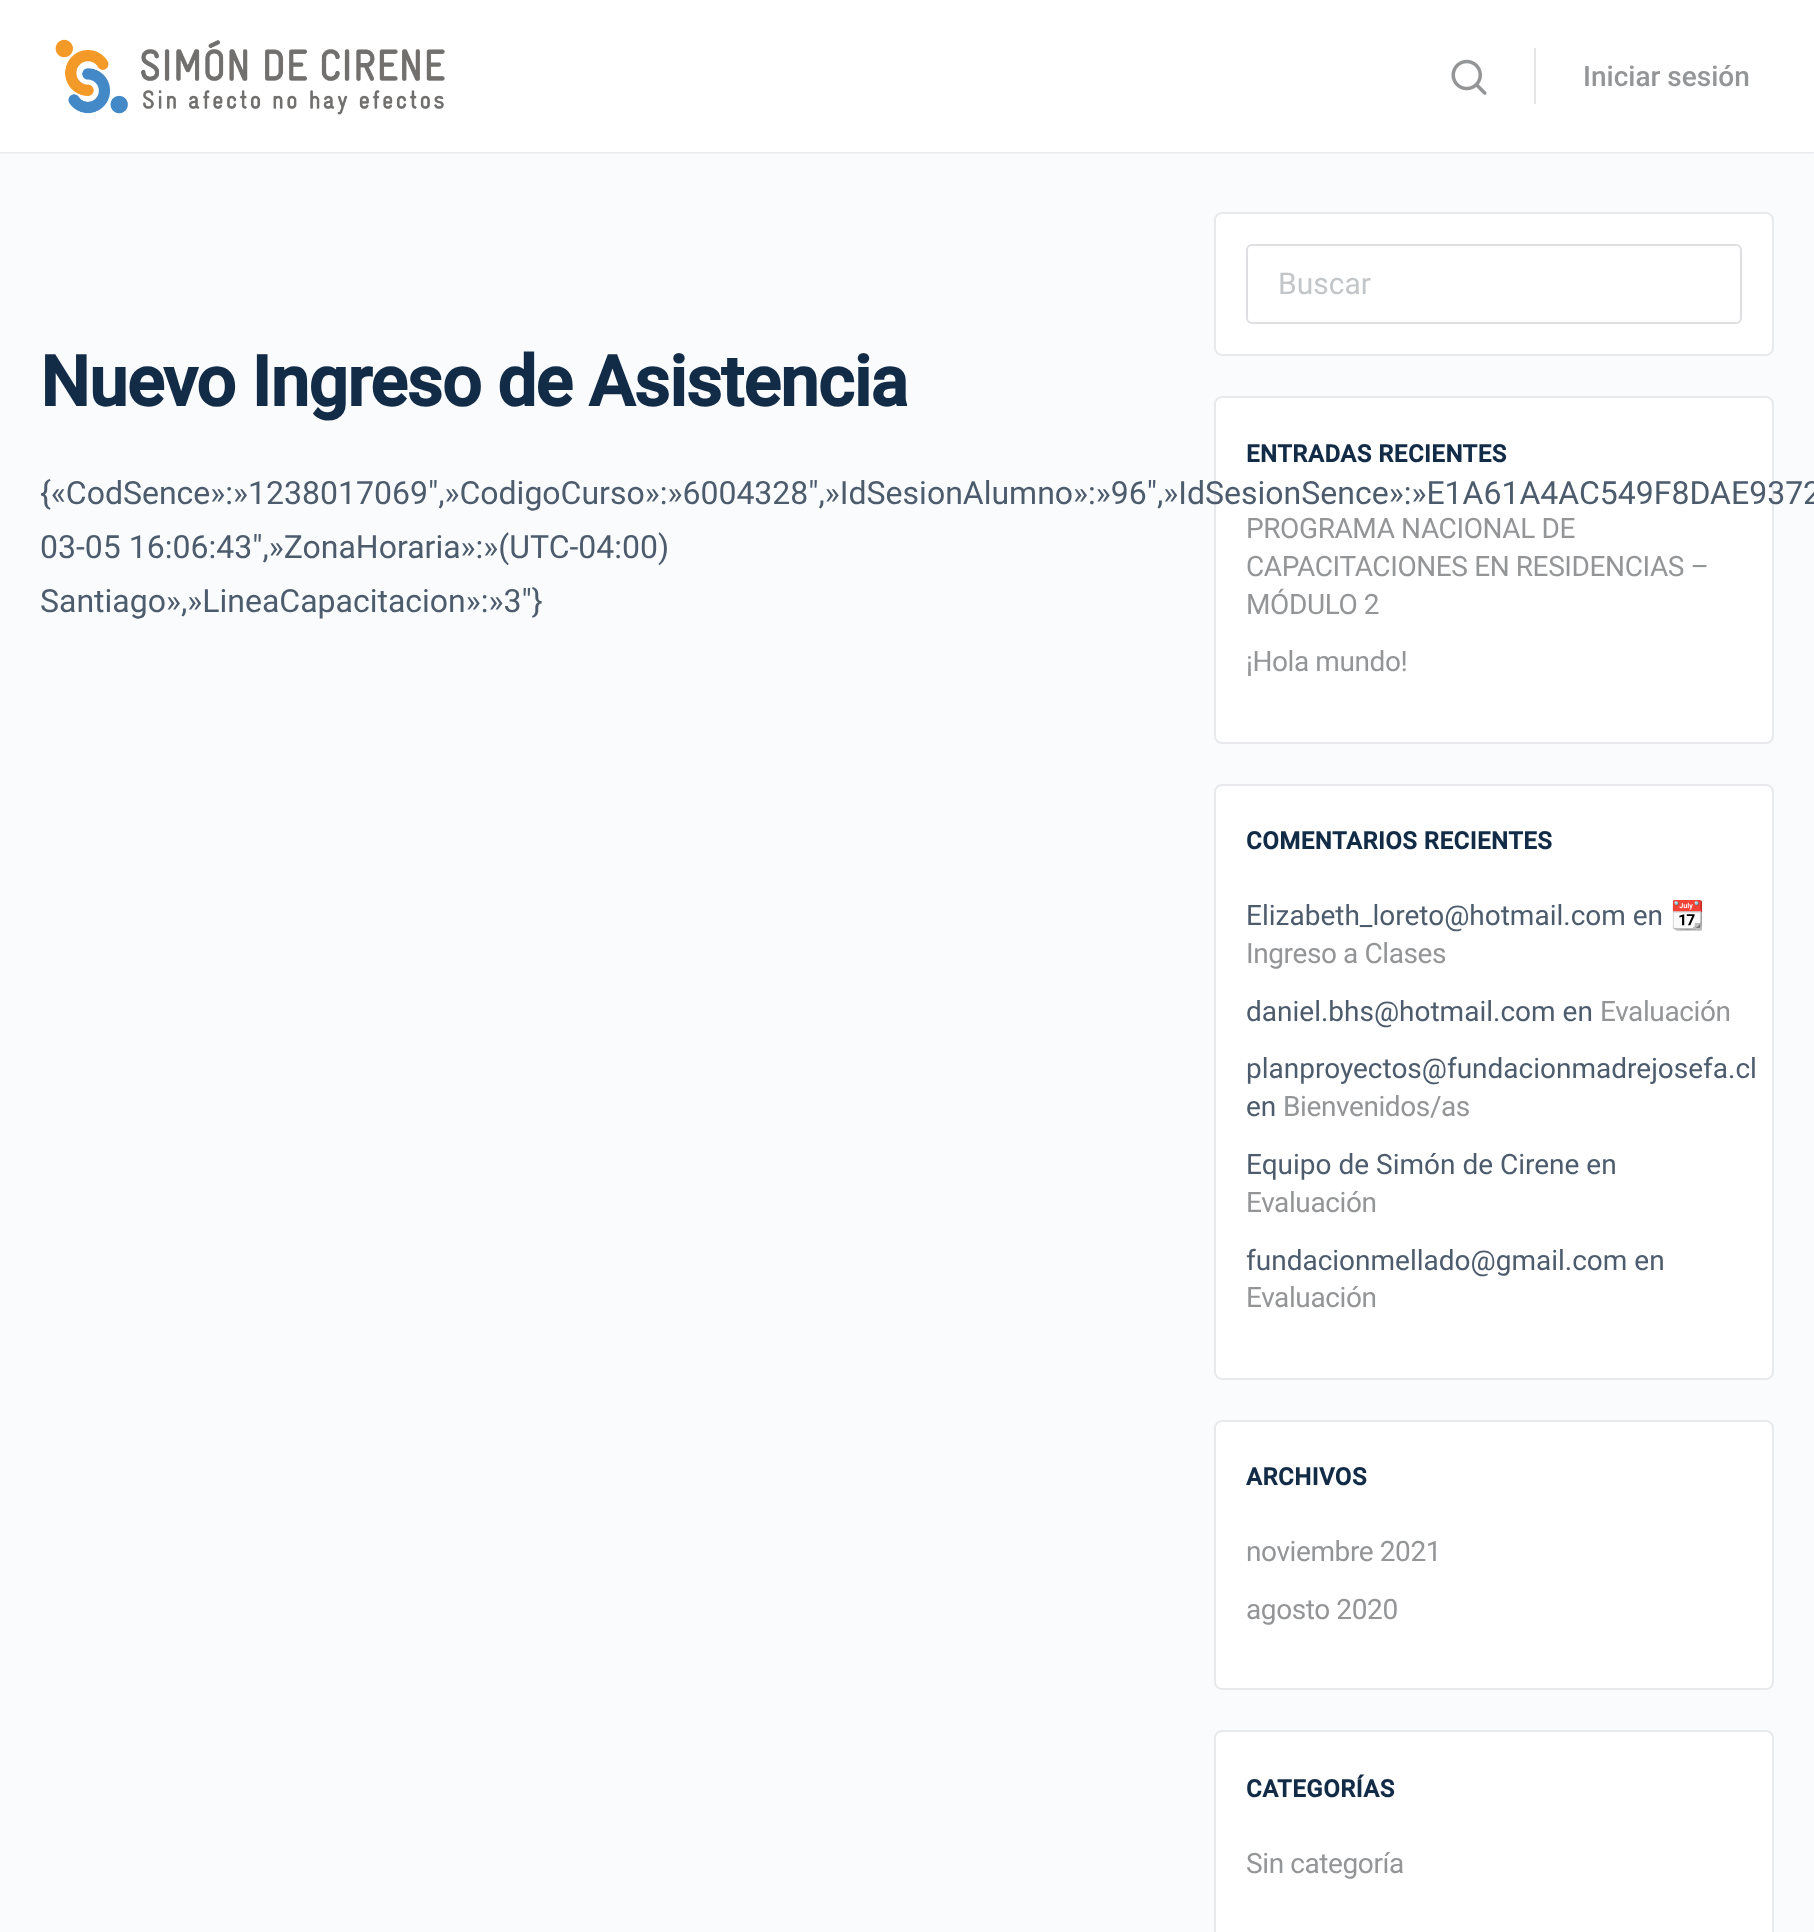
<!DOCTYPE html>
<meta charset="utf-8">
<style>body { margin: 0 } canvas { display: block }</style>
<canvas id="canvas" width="1814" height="1932"></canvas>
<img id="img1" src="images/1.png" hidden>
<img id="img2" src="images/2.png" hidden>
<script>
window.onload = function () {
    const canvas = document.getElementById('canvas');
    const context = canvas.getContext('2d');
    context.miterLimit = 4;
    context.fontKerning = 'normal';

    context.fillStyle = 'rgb(250, 251, 253)';
    context.fillRect(0, 0, 1814, 1932);
    context.fillStyle = 'rgba(65, 71, 108, 0.15)';
    context.filter = 'blur(1px)';
    context.beginPath();
    context.rect(0, 0, 1814, 152);
    context.fill();
    context.filter = 'none';
    context.fillStyle = 'rgba(139, 141, 157, 0.05)';
    context.fillRect(0, 152, 1814, 2);
    context.fillStyle = 'rgb(255, 255, 255)';
    context.fillRect(0, 0, 1814, 152);
    context.drawImage(document.getElementById('img1'), 55, 39, 390, 76);
    context.drawImage(document.getElementById('img2'), 1451, 59, 36, 36);
    context.fillStyle = 'rgb(230, 230, 230)';
    context.fillRect(1534, 48, 2, 56);
    context.fillStyle = 'rgb(255, 255, 255)';
    context.beginPath();
    context.roundRect(1215, 213, 558, 142, 7);
    context.fill();
    context.strokeStyle = 'rgb(231, 233, 236)';
    context.lineWidth = 2;
    context.stroke();
    context.beginPath();
    context.roundRect(1247, 245, 494, 78, 5);
    context.strokeStyle = 'rgb(222, 223, 226)';
    context.stroke();
    context.beginPath();
    context.roundRect(1215, 397, 558, 346, 7);
    context.fill();
    context.strokeStyle = 'rgb(231, 233, 236)';
    context.stroke();
    context.beginPath();
    context.roundRect(1215, 785, 558, 594, 7);
    context.fill();
    context.stroke();
    context.beginPath();
    context.roundRect(1215, 1421, 558, 268, 7);
    context.fill();
    context.stroke();
    context.beginPath();
    context.roundRect(1215, 1731, 558, 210, 7);
    context.fill();
    context.stroke();
    context.font = '500 28px Roboto';
    context.fillStyle = 'rgb(147, 149, 151)';
    context.fillText('Iniciar sesión', 1583, 86);
    context.font = '30px Roboto';
    context.fillStyle = 'rgb(195, 198, 201)';
    context.fillText('Buscar', 1278, 294);
    context.letterSpacing = '0.5px';
    context.font = 'bold 24px Roboto';
    context.fillStyle = 'rgb(18, 43, 70)';
    context.fillText('ENTRADAS RECIENTES', 1246, 462);
    context.letterSpacing = '-0.4px';
    context.font = '28px Roboto';
    context.fillStyle = 'rgb(147, 149, 151)';
    context.fillText('PROGRAMA NACIONAL DE', 1246, 538);
    context.fillText('CAPACITACIONES EN RESIDENCIAS –', 1246, 576);
    context.fillText('MÓDULO 2', 1246, 614);
    context.fillText('¡Hola mundo!', 1246, 671);
    context.letterSpacing = '0.5px';
    context.font = 'bold 24px Roboto';
    context.fillStyle = 'rgb(18, 43, 70)';
    context.fillText('COMENTARIOS RECIENTES', 1246, 849);
    context.letterSpacing = '0px';
    context.font = '28px Roboto';
    context.fillStyle = 'rgb(77, 92, 109)';
    context.fillText('Elizabeth_loreto@hotmail.com en', 1246, 925);
    context.letterSpacing = '-0.4px';
    context.font = '28px Noto Color Emoji';
    context.fillStyle = 'rgb(147, 149, 151)';
    context.fillText('📆', 1670, 925);
    context.font = '28px Roboto';
    context.fillText('Ingreso a Clases', 1246, 963);
    context.letterSpacing = '0px';
    context.fillStyle = 'rgb(77, 92, 109)';
    context.fillText('daniel.bhs@hotmail.com en', 1246, 1021);
    context.letterSpacing = '-0.4px';
    context.fillStyle = 'rgb(147, 149, 151)';
    context.fillText('Evaluación', 1600, 1021);
    context.letterSpacing = '0px';
    context.fillStyle = 'rgb(77, 92, 109)';
    context.fillText('planproyectos@fundacionmadrejosefa.cl', 1246, 1078);
    context.fillText('en', 1246, 1116);
    context.letterSpacing = '-0.4px';
    context.fillStyle = 'rgb(147, 149, 151)';
    context.fillText('Bienvenidos/as', 1283, 1116);
    context.letterSpacing = '0px';
    context.fillStyle = 'rgb(77, 92, 109)';
    context.fillText('Equipo de Simón de Cirene en', 1246, 1174);
    context.letterSpacing = '-0.4px';
    context.fillStyle = 'rgb(147, 149, 151)';
    context.fillText('Evaluación', 1246, 1212);
    context.letterSpacing = '0px';
    context.fillStyle = 'rgb(77, 92, 109)';
    context.fillText('fundacionmellado@gmail.com en', 1246, 1270);
    context.letterSpacing = '-0.4px';
    context.fillStyle = 'rgb(147, 149, 151)';
    context.fillText('Evaluación', 1246, 1307);
    context.letterSpacing = '0.5px';
    context.font = 'bold 24px Roboto';
    context.fillStyle = 'rgb(18, 43, 70)';
    context.fillText('ARCHIVOS', 1246, 1485);
    context.letterSpacing = '-0.4px';
    context.font = '28px Roboto';
    context.fillStyle = 'rgb(147, 149, 151)';
    context.fillText('noviembre 2021', 1246, 1561);
    context.fillText('agosto 2020', 1246, 1619);
    context.letterSpacing = '0.5px';
    context.font = 'bold 24px Roboto';
    context.fillStyle = 'rgb(18, 43, 70)';
    context.fillText('CATEGORÍAS', 1246, 1797);
    context.letterSpacing = '-0.4px';
    context.font = '28px Roboto';
    context.fillStyle = 'rgb(147, 149, 151)';
    context.fillText('Sin categoría', 1246, 1873);
    context.letterSpacing = '-0.95px';
    context.font = 'bold 70px Roboto';
    context.fillStyle = 'rgb(18, 43, 70)';
    context.fillText('Nuevo Ingreso de Asistencia', 40, 406);
    context.letterSpacing = '0px';
    context.font = '32px Roboto';
    context.fillStyle = 'rgb(77, 92, 109)';
    context.fillText('{«CodSence»:»1238017069″,»CodigoCurso»:»6004328″,»IdSesionAlumno»:»96″,»IdSesionSence»:»E1A61A4AC549F8DAE9372', 40, 504);
    context.fillText('03-05 16:06:43″,»ZonaHoraria»:»(UTC-04:00)', 40, 558);
    context.fillText('Santiago»,»LineaCapacitacion»:»3″}', 40, 612);
};
</script>
